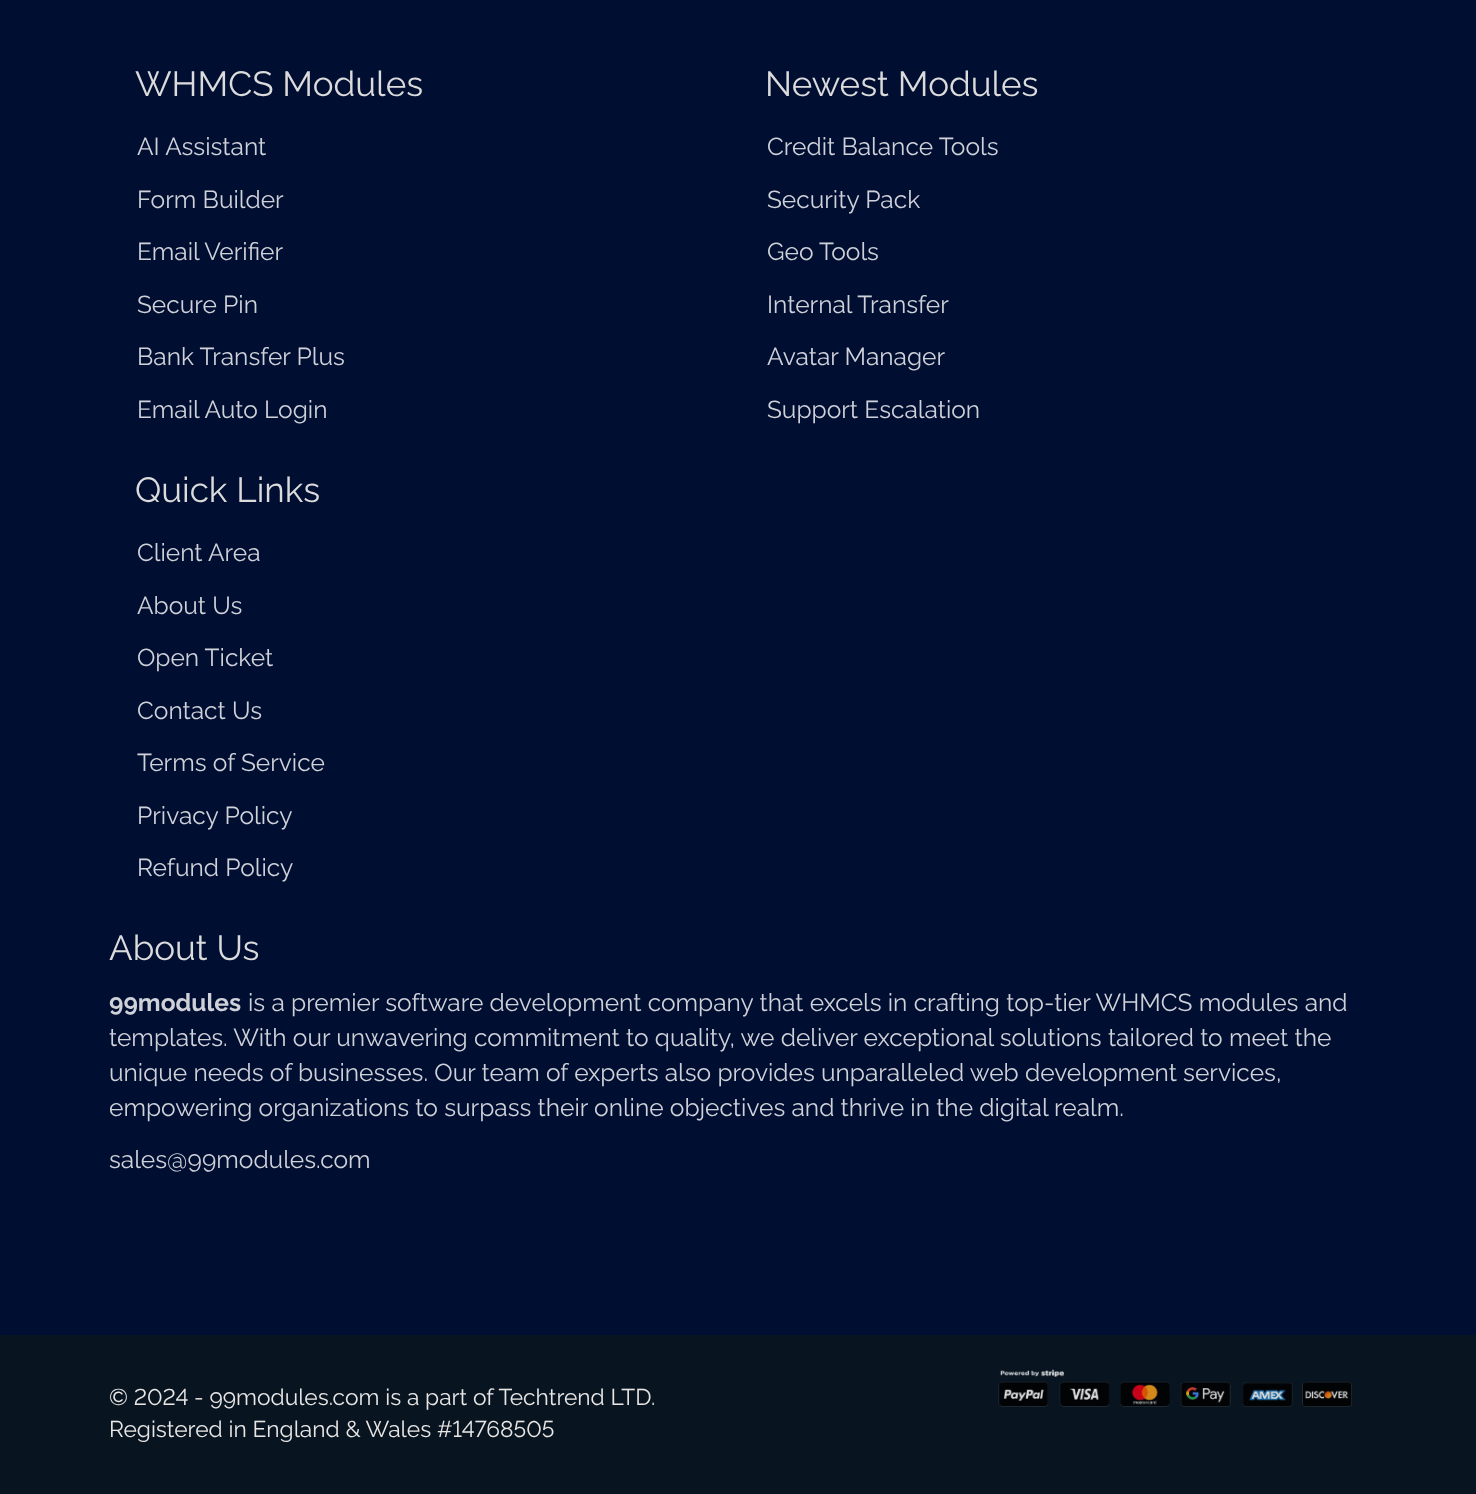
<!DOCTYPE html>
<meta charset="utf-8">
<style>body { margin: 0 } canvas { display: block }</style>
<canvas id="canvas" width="1476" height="1494"></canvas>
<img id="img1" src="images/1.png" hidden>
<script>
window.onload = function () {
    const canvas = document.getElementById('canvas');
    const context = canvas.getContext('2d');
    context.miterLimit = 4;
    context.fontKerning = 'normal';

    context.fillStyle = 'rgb(0, 14, 50)';
    context.fillRect(0, 0, 1476, 1494);
    context.fillStyle = 'rgb(8, 21, 32)';
    context.fillRect(0, 1335, 1476, 159);
    context.drawImage(document.getElementById('img1'), 998, 1369, 354, 38);
    context.font = '35px Raleway';
    context.fillStyle = 'rgb(219, 219, 219)';
    context.fillText('WHMCS Modules', 135, 96);
    context.font = '24.5px Raleway';
    context.fillStyle = 'rgb(207, 209, 216)';
    context.fillText('AI Assistant', 137, 155);
    context.fillText('Form Builder', 137, 208);
    context.fillText('Email Verifier', 137, 260);
    context.fillText('Secure Pin', 137, 313);
    context.fillText('Bank Transfer Plus', 137, 365);
    context.fillText('Email Auto Login', 137, 418);
    context.font = '35px Raleway';
    context.fillStyle = 'rgb(219, 219, 219)';
    context.fillText('Newest Modules', 765, 96);
    context.font = '24.5px Raleway';
    context.fillStyle = 'rgb(207, 209, 216)';
    context.fillText('Credit Balance Tools', 767, 155);
    context.fillText('Security Pack', 767, 208);
    context.fillText('Geo Tools', 767, 260);
    context.fillText('Internal Transfer', 767, 313);
    context.fillText('Avatar Manager', 767, 365);
    context.fillText('Support Escalation', 767, 418);
    context.font = '35px Raleway';
    context.fillStyle = 'rgb(219, 219, 219)';
    context.fillText('Quick Links', 135, 502);
    context.font = '24.5px Raleway';
    context.fillStyle = 'rgb(207, 209, 216)';
    context.fillText('Client Area', 137, 561);
    context.fillText('About Us', 137, 614);
    context.fillText('Open Ticket', 137, 666);
    context.fillText('Contact Us', 137, 719);
    context.fillText('Terms of Service', 137, 771);
    context.fillText('Privacy Policy', 137, 824);
    context.fillText('Refund Policy', 137, 876);
    context.font = '35px Raleway';
    context.fillStyle = 'rgb(219, 219, 219)';
    context.fillText('About Us', 109, 960);
    context.font = 'bold 24.5px Raleway';
    context.fillStyle = 'rgb(207, 209, 216)';
    context.fillText('99modules', 109, 1011);
    context.font = '24.5px Raleway';
    context.fillText('is a premier software development company that excels in crafting top-tier WHMCS modules and', 248, 1011);
    context.fillText('templates. With our unwavering commitment to quality, we deliver exceptional solutions tailored to meet the', 109, 1046);
    context.fillText('unique needs of businesses. Our team of experts also provides unparalleled web development services,', 109, 1081);
    context.fillText('empowering organizations to surpass their online objectives and thrive in the digital realm.', 109, 1116);
    context.fillText('sales@99modules.com', 109, 1168);
    context.font = '22.75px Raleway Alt';
    context.fillStyle = 'rgb(233, 230, 230)';
    context.fillText('© 2024', 109, 1405);
    context.font = '22.75px Raleway';
    context.fillText('- 99modules.com is a part of Techtrend LTD.', 194, 1405);
    context.font = '22.75px Raleway Alt';
    context.fillText('Registered in England & Wales #14768505', 109, 1437);
};
</script>
